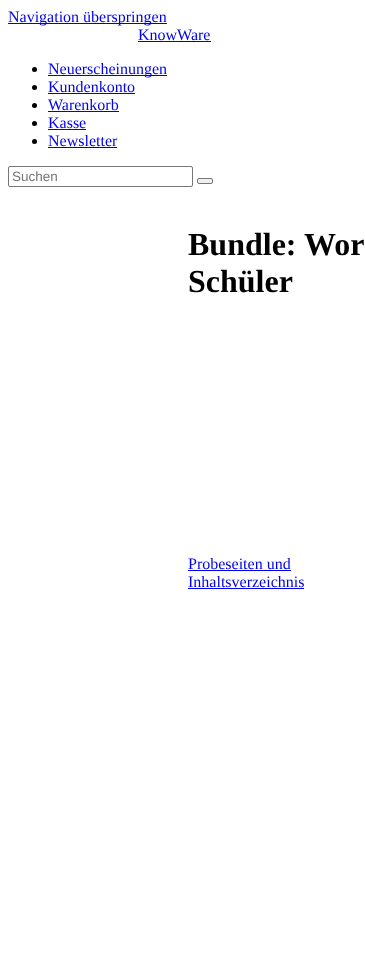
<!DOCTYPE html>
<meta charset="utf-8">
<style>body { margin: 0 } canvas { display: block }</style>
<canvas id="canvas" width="365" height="961"></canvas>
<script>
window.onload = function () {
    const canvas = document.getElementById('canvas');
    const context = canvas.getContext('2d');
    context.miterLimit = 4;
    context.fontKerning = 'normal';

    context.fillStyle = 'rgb(255, 255, 255)';
    context.fillRect(0, 0, 365, 961);
    context.fillStyle = 'rgb(0, 0, 238)';
    context.fillRect(8, 23, 159, 1);
    context.fillRect(138, 41, 73, 1);
    context.fillStyle = 'rgb(0, 0, 0)';
    context.beginPath();
    context.arc(34.5, 69.5, 2.5, 0, 2 * Math.PI);
    context.fill();
    context.fillStyle = 'rgb(0, 0, 238)';
    context.fillRect(48, 75, 119, 1);
    context.fillStyle = 'rgb(0, 0, 0)';
    context.beginPath();
    context.arc(34.5, 87.5, 2.5, 0, 2 * Math.PI);
    context.fill();
    context.fillStyle = 'rgb(0, 0, 238)';
    context.fillRect(48, 93, 87, 1);
    context.fillStyle = 'rgb(0, 0, 0)';
    context.beginPath();
    context.arc(34.5, 105.5, 2.5, 0, 2 * Math.PI);
    context.fill();
    context.fillStyle = 'rgb(0, 0, 238)';
    context.fillRect(48, 111, 71, 1);
    context.fillStyle = 'rgb(0, 0, 0)';
    context.beginPath();
    context.arc(34.5, 123.5, 2.5, 0, 2 * Math.PI);
    context.fill();
    context.fillStyle = 'rgb(0, 0, 238)';
    context.fillRect(48, 129, 38, 1);
    context.fillStyle = 'rgb(0, 0, 0)';
    context.beginPath();
    context.arc(34.5, 141.5, 2.5, 0, 2 * Math.PI);
    context.fill();
    context.fillStyle = 'rgb(0, 0, 238)';
    context.fillRect(48, 147, 69, 1);
    context.beginPath();
    context.roundRect(8.5, 166.5, 184, 20, 1.5);
    context.strokeStyle = 'rgb(118, 118, 118)';
    context.stroke();
    context.fillStyle = 'rgb(239, 239, 239)';
    context.beginPath();
    context.roundRect(197.5, 178.5, 15, 5, 1.5);
    context.fill();
    context.stroke();
    context.fillStyle = 'rgb(0, 0, 238)';
    context.fillRect(188, 570, 103, 1);
    context.fillRect(188, 588, 116, 1);
    context.font = '16px Liberation Serif';
    context.fillText('Navigation überspringen', 8, 22);
    context.fillText('KnowWare', 138, 40);
    context.fillText('Neuerscheinungen', 48, 74);
    context.fillText('Kundenkonto', 48, 92);
    context.fillText('Warenkorb', 48, 110);
    context.fillText('Kasse', 48, 128);
    context.fillText('Newsletter', 48, 146);
    context.font = '13.5px Liberation Sans';
    context.fillStyle = 'rgb(117, 117, 117)';
    context.fillText('Suchen', 12, 181);
    context.font = 'bold 32px Liberation Serif';
    context.fillStyle = 'rgb(0, 0, 0)';
    context.fillText('Bundle: Wor', 188, 255);
    context.fillText('Schüler', 188, 292);
    context.font = '16px Liberation Serif';
    context.fillStyle = 'rgb(0, 0, 238)';
    context.fillText('Probeseiten und', 188, 569);
    context.fillText('Inhaltsverzeichnis', 188, 587);
};
</script>
